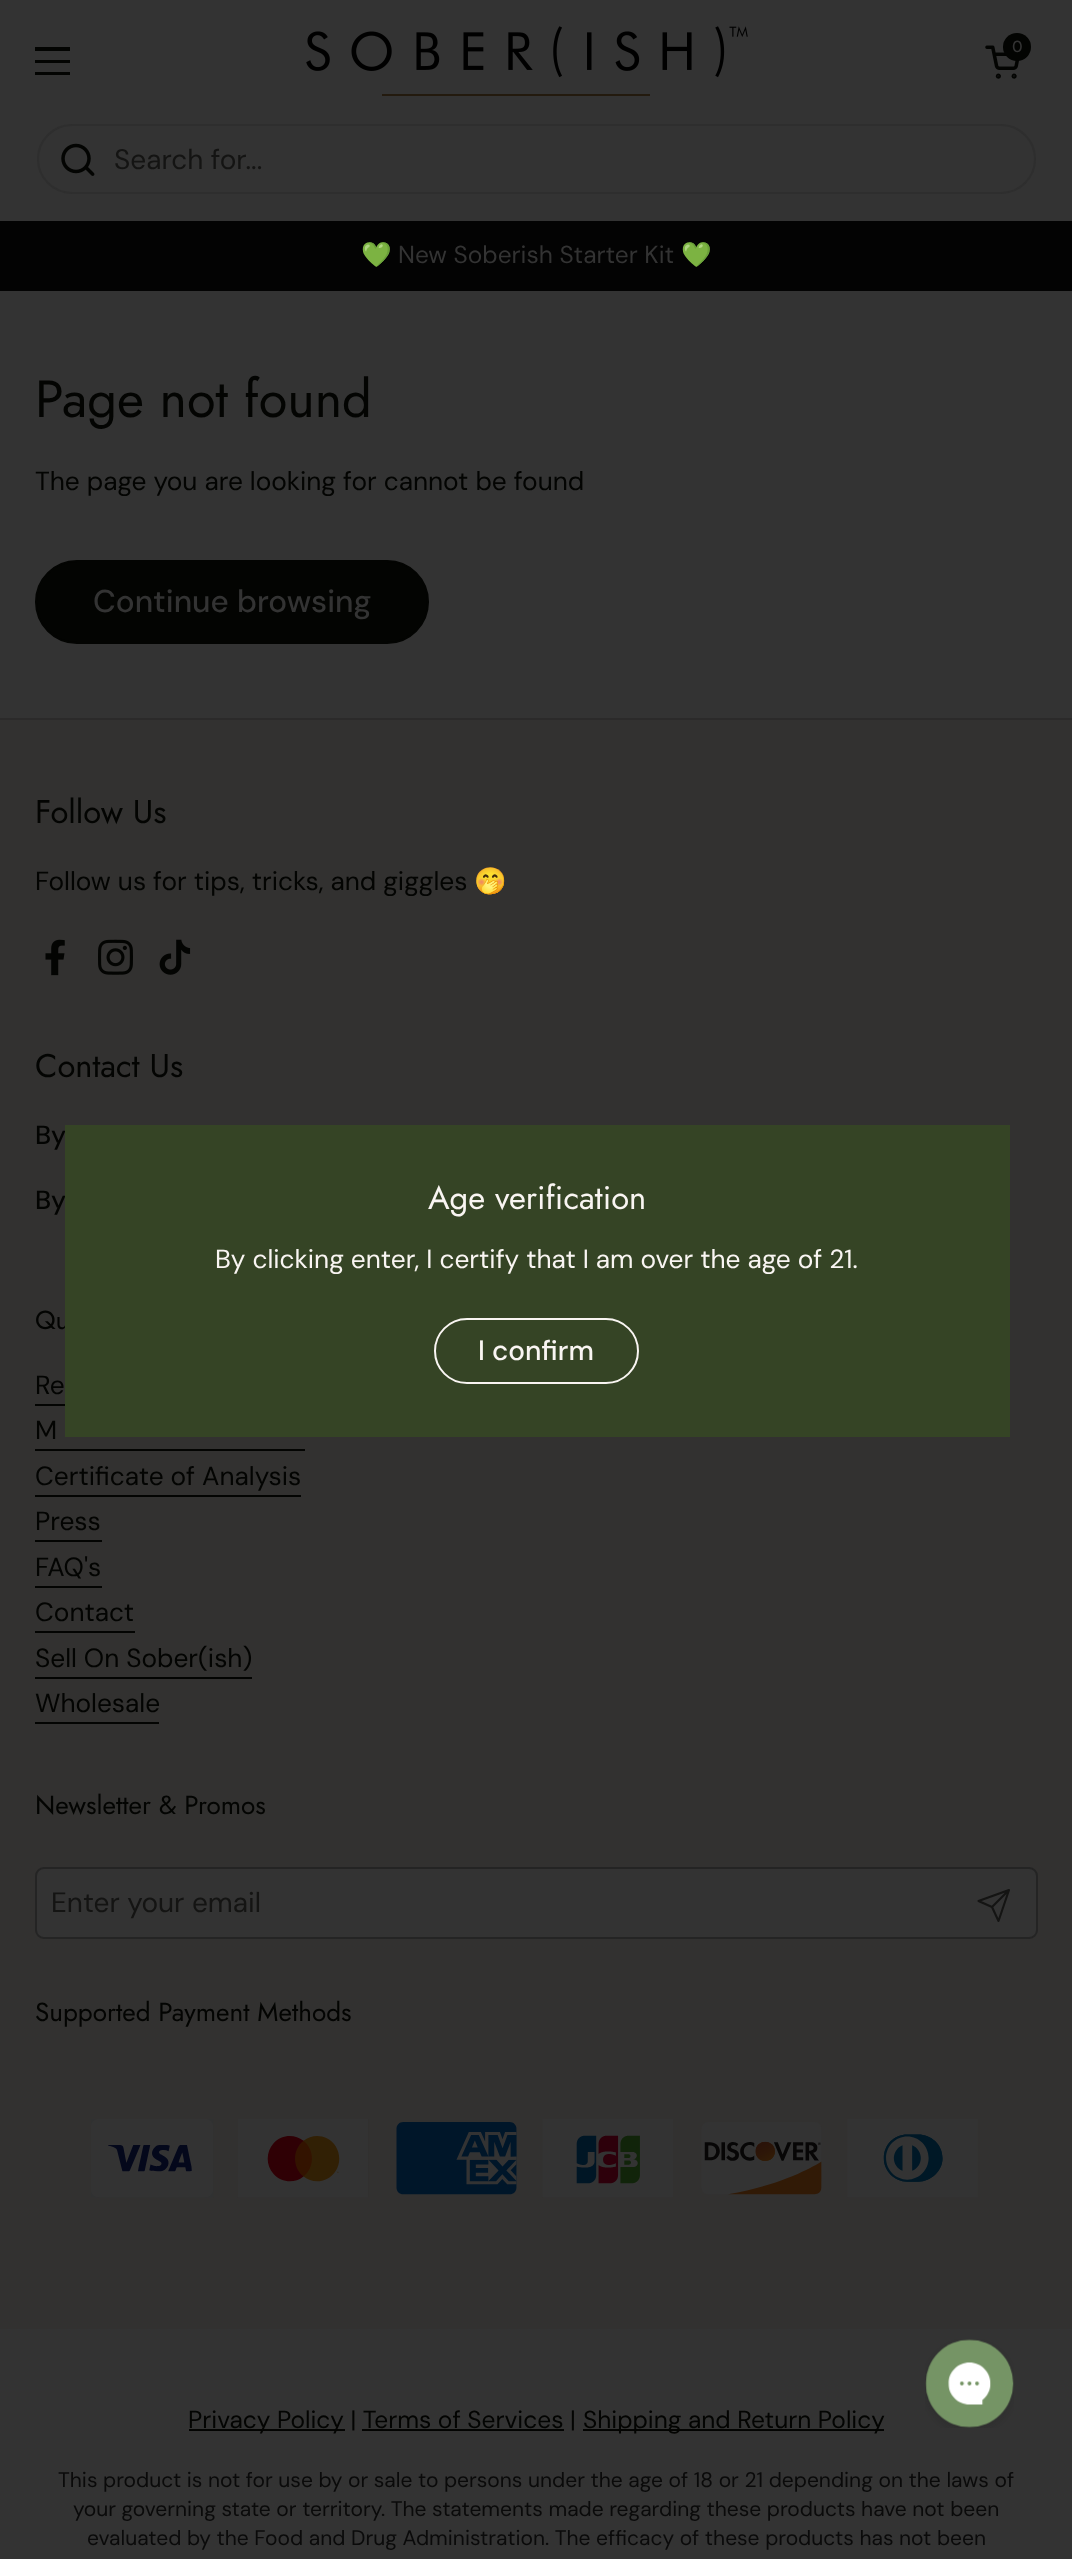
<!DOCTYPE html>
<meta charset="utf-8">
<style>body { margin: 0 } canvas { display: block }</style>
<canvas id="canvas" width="1072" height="2559"></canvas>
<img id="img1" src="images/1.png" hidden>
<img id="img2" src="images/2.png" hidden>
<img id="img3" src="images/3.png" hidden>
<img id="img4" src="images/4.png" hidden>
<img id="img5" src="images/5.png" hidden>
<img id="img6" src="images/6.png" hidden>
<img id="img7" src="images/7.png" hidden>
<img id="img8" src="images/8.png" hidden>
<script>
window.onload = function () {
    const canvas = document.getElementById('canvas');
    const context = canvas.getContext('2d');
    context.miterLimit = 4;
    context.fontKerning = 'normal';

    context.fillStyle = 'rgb(51, 51, 51)';
    context.fillRect(0, 0, 1072, 2559);
    context.fillStyle = 'rgb(3, 4, 2)';
    context.fillRect(35, 47, 35, 4);
    context.fillRect(35, 60, 35, 3);
    context.fillRect(35, 72, 35, 3);
    context.drawImage(document.getElementById('img1'), 306, 26, 442, 70);
    context.drawImage(document.getElementById('img2'), 985, 45, 35, 34);
    context.beginPath();
    context.arc(1017, 47, 14, 0, 2 * Math.PI);
    context.fill();
    context.beginPath();
    context.roundRect(38, 125, 997, 68, 34);
    context.strokeStyle = 'rgb(46, 46, 46)';
    context.lineWidth = 2;
    context.stroke();
    context.drawImage(document.getElementById('img3'), 61, 143, 34, 33);
    context.fillStyle = 'rgb(3, 3, 3)';
    context.fillRect(0, 221, 1072, 70);
    context.fillStyle = 'rgb(3, 4, 2)';
    context.beginPath();
    context.roundRect(36, 561, 392, 82, 41);
    context.fill();
    context.strokeStyle = 'rgb(3, 4, 2)';
    context.stroke();
    context.fillStyle = 'rgb(50, 49, 48)';
    context.fillRect(0, 720, 1072, 1609);
    context.fillStyle = 'rgb(43, 42, 42)';
    context.fillRect(0, 718, 1072, 2);
    context.drawImage(document.getElementById('img4'), 45, 939, 20, 37);
    context.drawImage(document.getElementById('img5'), 98, 939, 35, 36);
    context.drawImage(document.getElementById('img6'), 159, 939, 32, 36);
    context.fillStyle = 'rgb(3, 4, 2)';
    context.fillRect(35, 1404, 30, 2);
    context.fillRect(35, 1449, 270, 2);
    context.fillRect(35, 1495, 266, 2);
    context.fillRect(35, 1540, 67, 2);
    context.fillRect(35, 1586, 67, 2);
    context.fillRect(35, 1631, 100, 2);
    context.fillRect(35, 1677, 217, 2);
    context.fillRect(35, 1722, 124, 2);
    context.fillStyle = 'rgb(51, 51, 51)';
    context.beginPath();
    context.roundRect(35, 1867, 1003, 72, 9);
    context.fill();
    context.beginPath();
    context.roundRect(36, 1868, 1001, 70, 8);
    context.strokeStyle = 'rgba(3, 4, 2, 0.3)';
    context.stroke();
    context.beginPath();
    context.moveTo(1009, 1890);
    context.lineTo(992, 1907);
    context.moveTo(1009, 1890);
    context.lineTo(998.5, 1921);
    context.lineTo(992, 1907);
    context.lineTo(978.5, 1901);
    context.closePath();
    context.strokeStyle = 'rgb(20, 20, 19)';
    context.lineWidth = 2.1;
    context.lineCap = 'round';
    context.lineJoin = 'round';
    context.stroke();
    context.drawImage(document.getElementById('img7'), 91, 2119, 887, 79);
    context.drawImage(document.getElementById('img8'), 925, 2339, 89, 89);
    context.fillStyle = 'rgb(3, 4, 2)';
    context.fillRect(189, 2429, 156, 2);
    context.fillRect(583, 2429, 301, 2);
    context.fillRect(362, 2429, 202, 2);
    context.font = '500 16px "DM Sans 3"';
    context.fillStyle = 'rgb(51, 51, 51)';
    context.fillText('0', 1012, 52);
    context.font = '28px DM Sans';
    context.fillStyle = 'rgb(20, 20, 19)';
    context.fillText('Search for...', 114, 169);
    context.font = '24.5px Noto Color Emoji';
    context.fillStyle = 'rgb(51, 51, 51)';
    context.fillText('💚', 361, 263);
    context.font = '24.5px DM Sans';
    context.fillText('New Soberish Starter Kit', 398, 263);
    context.font = '24.5px Noto Color Emoji';
    context.fillText('💚', 681, 263);
    context.font = '52.25px Jost';
    context.fillStyle = 'rgb(3, 4, 2)';
    context.fillText('Page not found', 35, 417);
    context.font = '26.25px DM Sans';
    context.fillText('The page you are looking for cannot be found', 35, 490);
    context.font = '500 31.5px DM Sans';
    context.fillStyle = 'rgb(51, 51, 51)';
    context.fillText('Continue browsing', 93, 612);
    context.font = '32.75px Jost';
    context.fillStyle = 'rgb(3, 4, 2)';
    context.fillText('Follow Us', 35, 823);
    context.font = '26.25px DM Sans';
    context.fillText('Follow us for tips, tricks, and giggles', 35, 890);
    context.font = '26.25px Noto Color Emoji';
    context.fillText('🤭', 474, 890);
    context.font = '32.75px Jost';
    context.fillText('Contact Us', 35, 1077);
    context.font = '500 26.25px "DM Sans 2"';
    context.fillText('By', 35, 1144);
    context.fillText('By', 35, 1209);
    context.font = '26.1px Jost';
    context.fillText('Qu', 35, 1329);
    context.font = '26.25px DM Sans';
    context.fillText('Re', 35, 1394);
    context.fillText('M', 35, 1439);
    context.fillText('Certificate of Analysis', 35, 1485);
    context.fillText('Press', 35, 1530);
    context.fillText('FAQ\'s', 35, 1576);
    context.fillText('Contact', 35, 1621);
    context.fillText('Sell On Sober(ish)', 35, 1667);
    context.fillText('Wholesale', 35, 1712);
    context.font = '26.1px Jost';
    context.fillText('Newsletter & Promos', 35, 1814);
    context.font = '28px DM Sans';
    context.fillStyle = 'rgb(20, 20, 19)';
    context.fillText('Enter your email', 51, 1912);
    context.font = '26.1px Jost';
    context.fillStyle = 'rgb(3, 4, 2)';
    context.fillText('Supported Payment Methods', 35, 2021);
    context.fillStyle = 'rgb(53, 68, 37)';
    context.fillRect(65, 1125, 945, 312);
    context.font = '32.75px Jost';
    context.fillStyle = 'rgb(249, 245, 242)';
    context.fillText('Age verification', 428, 1209);
    context.font = '26.25px DM Sans';
    context.fillText('By clicking enter, I certify that I am over the age of 21.', 215, 1268);
    context.beginPath();
    context.roundRect(435, 1319, 203, 64, 32);
    context.strokeStyle = 'rgb(249, 245, 242)';
    context.lineWidth = 2;
    context.lineJoin = 'miter';
    context.stroke();
    context.font = '500 28px "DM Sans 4"';
    context.fillText('I confirm', 478, 1360);
    context.font = '24.5px DM Sans';
    context.fillStyle = 'rgb(3, 4, 2)';
    context.fillText('Privacy Policy | Terms of Services |', 188, 2428);
    context.fillText('Shipping and Return Policy', 583, 2428);
    context.font = '21px DM Sans';
    context.fillStyle = 'rgb(10, 10, 10)';
    context.fillText('This product is not for use by or sale to persons under the age of 18 or 21 depending on the laws of', 58, 2487);
    context.fillText('your governing state or territory. The statements made regarding these products have not been', 73, 2516);
    context.fillText('evaluated by the Food and Drug Administration. The efficacy of these products has not been', 87, 2545);
};
</script>
